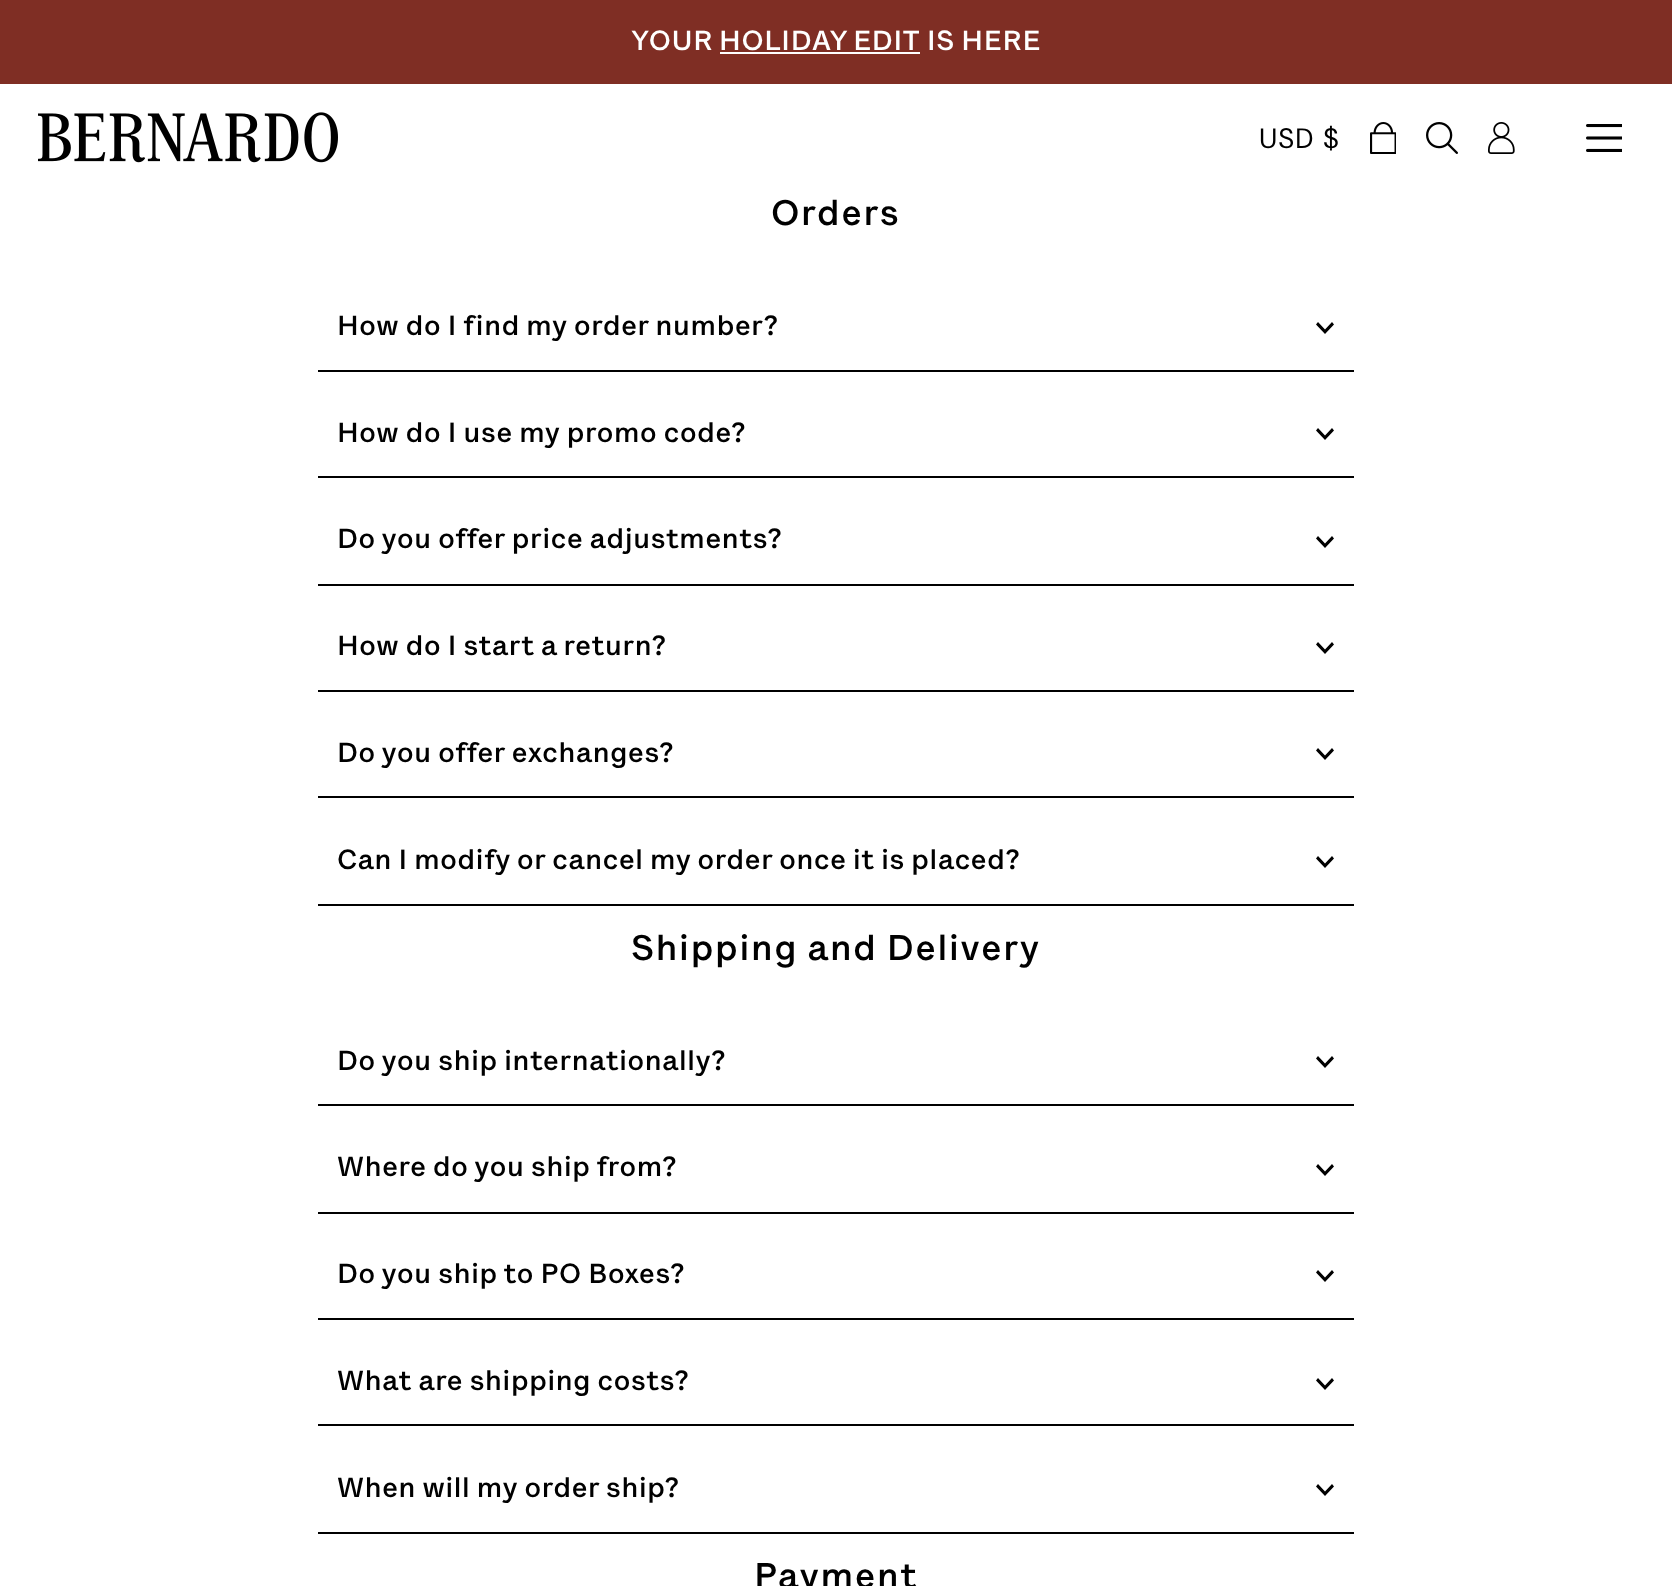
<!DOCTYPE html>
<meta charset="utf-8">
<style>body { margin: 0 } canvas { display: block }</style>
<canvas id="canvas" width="1672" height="1586"></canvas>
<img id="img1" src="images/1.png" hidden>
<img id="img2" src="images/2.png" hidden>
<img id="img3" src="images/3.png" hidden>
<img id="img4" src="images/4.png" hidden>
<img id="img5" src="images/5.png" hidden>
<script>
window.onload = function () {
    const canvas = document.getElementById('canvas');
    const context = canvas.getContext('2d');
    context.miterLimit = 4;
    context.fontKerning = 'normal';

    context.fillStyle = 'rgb(255, 255, 255)';
    context.fillRect(0, 0, 1672, 1586);
    context.fillStyle = 'rgb(127, 46, 36)';
    context.fillRect(0, 0, 1672, 84);
    context.fillStyle = 'rgb(255, 255, 255)';
    context.fillRect(720, 52, 200, 2);
    context.drawImage(document.getElementById('img1'), 38, 112, 300, 51);
    context.drawImage(document.getElementById('img2'), 1370, 122, 26, 32);
    context.drawImage(document.getElementById('img3'), 1426, 122, 32, 32);
    context.drawImage(document.getElementById('img4'), 1488, 122, 27, 32);
    context.drawImage(document.getElementById('img5'), 1586, 124, 36, 28);
    context.fillStyle = 'rgb(0, 0, 0)';
    context.fillRect(318, 370, 1036, 2);
    context.beginPath();
    context.moveTo(1332, 322);
    context.lineTo(1325, 329.5);
    context.lineTo(1318, 322);
    context.lineTo(1316, 324.5);
    context.lineTo(1325, 334);
    context.lineTo(1334, 324.5);
    context.closePath();
    context.fill();
    context.fillRect(318, 476, 1036, 2);
    context.beginPath();
    context.moveTo(1332, 428);
    context.lineTo(1325, 435.5);
    context.lineTo(1318, 428);
    context.lineTo(1316, 430.5);
    context.lineTo(1325, 440);
    context.lineTo(1334, 430.5);
    context.closePath();
    context.fill();
    context.fillRect(318, 584, 1036, 2);
    context.beginPath();
    context.moveTo(1332, 536);
    context.lineTo(1325, 543.5);
    context.lineTo(1318, 536);
    context.lineTo(1316, 538.5);
    context.lineTo(1325, 548);
    context.lineTo(1334, 538.5);
    context.closePath();
    context.fill();
    context.fillRect(318, 690, 1036, 2);
    context.beginPath();
    context.moveTo(1332, 642);
    context.lineTo(1325, 649.5);
    context.lineTo(1318, 642);
    context.lineTo(1316, 644.5);
    context.lineTo(1325, 654);
    context.lineTo(1334, 644.5);
    context.closePath();
    context.fill();
    context.fillRect(318, 796, 1036, 2);
    context.beginPath();
    context.moveTo(1332, 748);
    context.lineTo(1325, 755.5);
    context.lineTo(1318, 748);
    context.lineTo(1316, 750.5);
    context.lineTo(1325, 760);
    context.lineTo(1334, 750.5);
    context.closePath();
    context.fill();
    context.fillRect(318, 904, 1036, 2);
    context.beginPath();
    context.moveTo(1332, 856);
    context.lineTo(1325, 863.5);
    context.lineTo(1318, 856);
    context.lineTo(1316, 858.5);
    context.lineTo(1325, 868);
    context.lineTo(1334, 858.5);
    context.closePath();
    context.fill();
    context.fillRect(318, 1104, 1036, 2);
    context.beginPath();
    context.moveTo(1332, 1056);
    context.lineTo(1325, 1063.5);
    context.lineTo(1318, 1056);
    context.lineTo(1316, 1058.5);
    context.lineTo(1325, 1068);
    context.lineTo(1334, 1058.5);
    context.closePath();
    context.fill();
    context.fillRect(318, 1212, 1036, 2);
    context.beginPath();
    context.moveTo(1332, 1164);
    context.lineTo(1325, 1171.5);
    context.lineTo(1318, 1164);
    context.lineTo(1316, 1166.5);
    context.lineTo(1325, 1176);
    context.lineTo(1334, 1166.5);
    context.closePath();
    context.fill();
    context.fillRect(318, 1318, 1036, 2);
    context.beginPath();
    context.moveTo(1332, 1270);
    context.lineTo(1325, 1277.5);
    context.lineTo(1318, 1270);
    context.lineTo(1316, 1272.5);
    context.lineTo(1325, 1282);
    context.lineTo(1334, 1272.5);
    context.closePath();
    context.fill();
    context.fillRect(318, 1424, 1036, 2);
    context.beginPath();
    context.moveTo(1332, 1378);
    context.lineTo(1325, 1385.5);
    context.lineTo(1318, 1378);
    context.lineTo(1316, 1380.5);
    context.lineTo(1325, 1390);
    context.lineTo(1334, 1380.5);
    context.closePath();
    context.fill();
    context.fillRect(318, 1532, 1036, 2);
    context.beginPath();
    context.moveTo(1332, 1484);
    context.lineTo(1325, 1491.5);
    context.lineTo(1318, 1484);
    context.lineTo(1316, 1486.5);
    context.lineTo(1325, 1496);
    context.lineTo(1334, 1486.5);
    context.closePath();
    context.fill();
    context.letterSpacing = '0.7px';
    context.font = '500 28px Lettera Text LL';
    context.fillStyle = 'rgb(255, 255, 255)';
    context.fillText('YOUR', 631, 50);
    context.wordSpacing = '-1px';
    context.fillText('HOLIDAY EDIT', 719, 50);
    context.wordSpacing = '0px';
    context.fillText('IS HERE', 927, 50);
    context.font = '28px DM Sans';
    context.fillStyle = 'rgb(0, 0, 0)';
    context.fillText('USD $', 1259, 148);
    context.letterSpacing = '1.8px';
    context.font = '500 36px Lettera Text LL';
    context.fillText('Orders', 771, 225);
    context.letterSpacing = '0.7px';
    context.font = '500 28px Lettera Text LL';
    context.fillText('How do I find my order number?', 337, 335);
    context.fillText('How do I use my promo code?', 337, 442);
    context.fillText('Do you offer price adjustments?', 337, 548);
    context.fillText('How do I start a return?', 337, 655);
    context.fillText('Do you offer exchanges?', 337, 762);
    context.fillText('Can I modify or cancel my order once it is placed?', 337, 869);
    context.letterSpacing = '1.8px';
    context.font = '500 36px Lettera Text LL';
    context.fillText('Shipping and Delivery', 631, 960);
    context.letterSpacing = '0.7px';
    context.font = '500 28px Lettera Text LL';
    context.fillText('Do you ship internationally?', 337, 1070);
    context.fillText('Where do you ship from?', 337, 1176);
    context.fillText('Do you ship to PO Boxes?', 337, 1283);
    context.fillText('What are shipping costs?', 337, 1390);
    context.fillText('When will my order ship?', 337, 1497);
    context.letterSpacing = '1.8px';
    context.font = '500 36px Lettera Text LL';
    context.fillText('Payment', 754, 1588);
};
</script>
